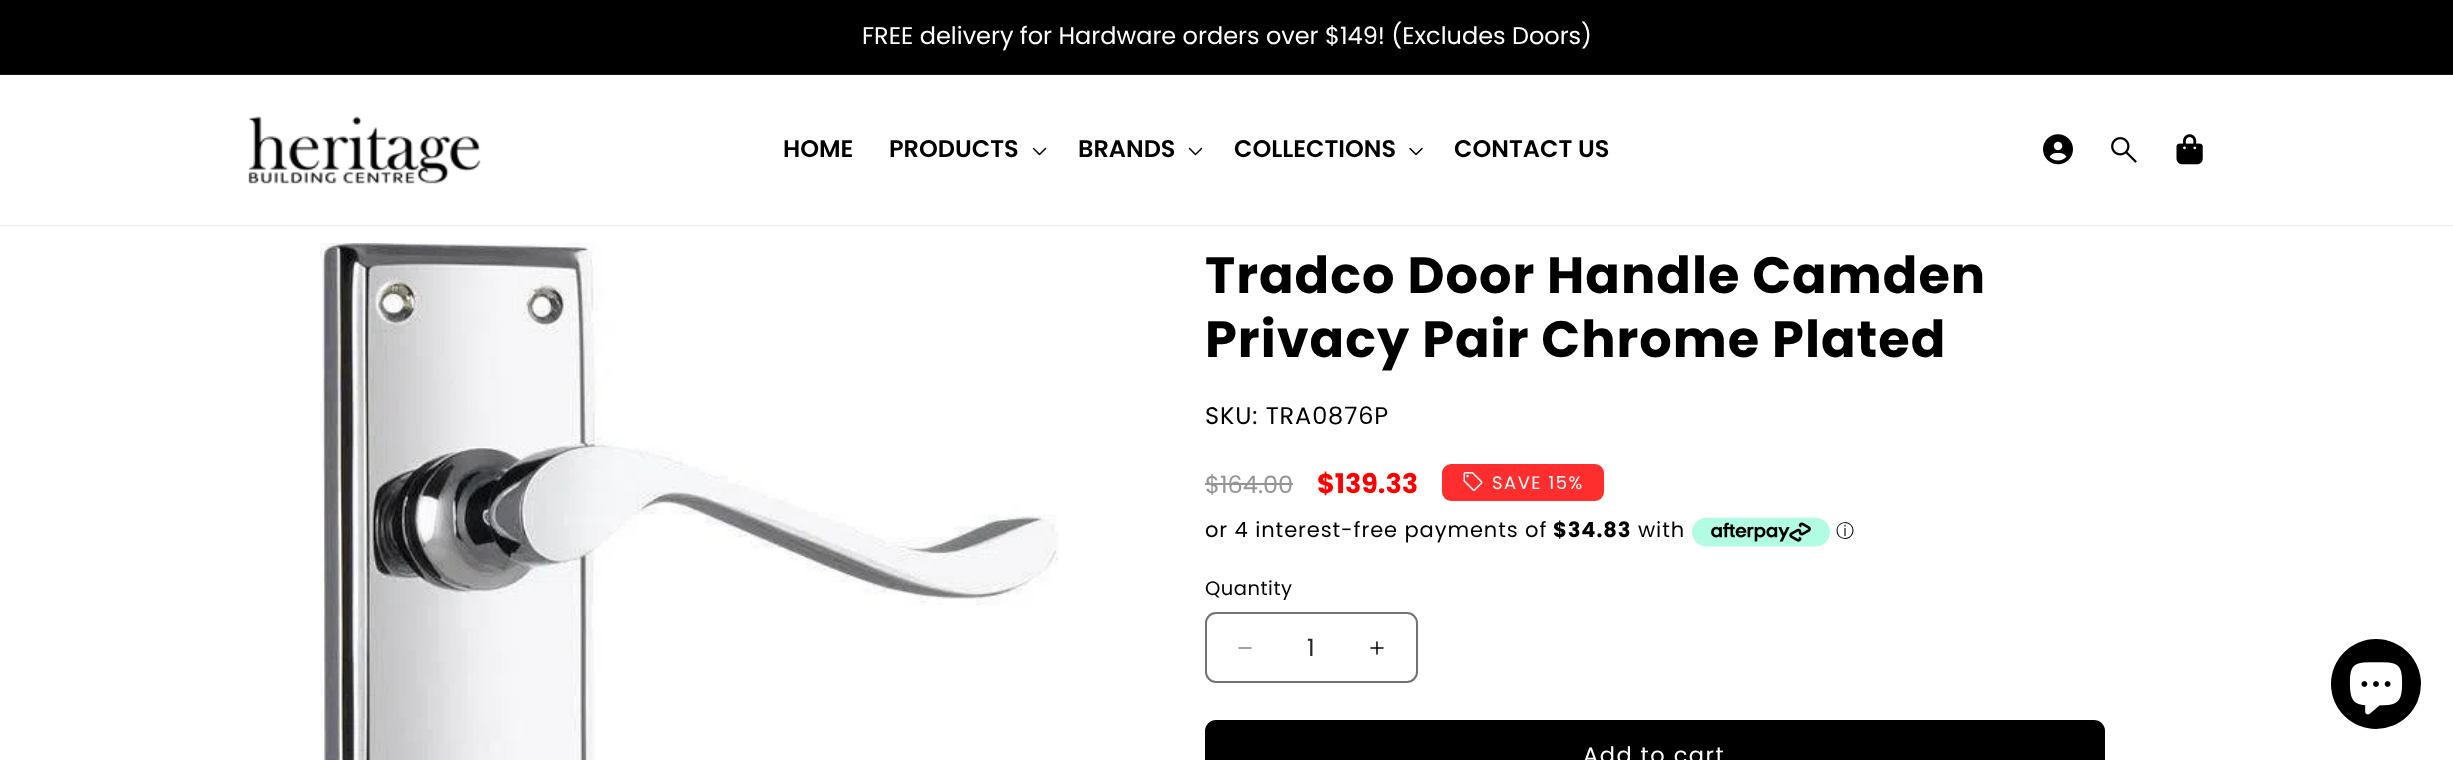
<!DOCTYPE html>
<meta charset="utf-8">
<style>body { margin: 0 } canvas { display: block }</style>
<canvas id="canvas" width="2453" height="760"></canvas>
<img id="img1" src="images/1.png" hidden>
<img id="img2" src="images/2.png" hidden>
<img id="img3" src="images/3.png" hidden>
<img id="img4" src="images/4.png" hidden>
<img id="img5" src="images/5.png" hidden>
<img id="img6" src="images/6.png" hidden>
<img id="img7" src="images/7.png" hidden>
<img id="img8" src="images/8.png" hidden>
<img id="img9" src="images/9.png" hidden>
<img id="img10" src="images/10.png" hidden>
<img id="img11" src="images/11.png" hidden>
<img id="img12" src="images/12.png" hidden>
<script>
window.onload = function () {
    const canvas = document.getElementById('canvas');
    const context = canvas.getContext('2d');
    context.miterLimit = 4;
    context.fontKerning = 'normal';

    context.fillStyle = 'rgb(255, 255, 255)';
    context.fillRect(0, 0, 2453, 760);
    context.fillStyle = 'rgb(0, 0, 0)';
    context.fillRect(0, 0, 2453, 74);
    context.fillStyle = 'rgb(20, 20, 20)';
    context.fillRect(0, 74, 2453, 1);
    context.drawImage(document.getElementById('img1'), 248, 116, 233, 68);
    context.drawImage(document.getElementById('img2'), 1032, 147, 15, 9);
    context.drawImage(document.getElementById('img2'), 1188, 147, 15, 9);
    context.drawImage(document.getElementById('img3'), 1409, 147, 14, 9);
    context.drawImage(document.getElementById('img4'), 2043, 134, 30, 31);
    context.drawImage(document.getElementById('img5'), 2111, 137, 26, 26);
    context.drawImage(document.getElementById('img6'), 2176, 134, 27, 31);
    context.fillStyle = 'rgb(235, 235, 235)';
    context.fillRect(0, 225, 2453, 1);
    context.drawImage(document.getElementById('img7'), 320, 243, 739, 517);
    context.fillStyle = 'rgb(150, 149, 149)';
    context.fillRect(1205, 483, 88, 2);
    context.fillStyle = 'rgb(255, 46, 46)';
    context.beginPath();
    context.roundRect(1442, 464, 162, 37, 9);
    context.fill();
    context.drawImage(document.getElementById('img8'), 1463, 472, 20, 19);
    context.drawImage(document.getElementById('img9'), 1692, 517, 138, 30);
    context.drawImage(document.getElementById('img10'), 1238, 647, 14, 2);
    context.drawImage(document.getElementById('img11'), 1370, 641, 14, 14);
    context.beginPath();
    context.roundRect(1206, 613, 211, 69, 10);
    context.strokeStyle = 'rgb(115, 115, 115)';
    context.lineWidth = 2;
    context.stroke();
    context.fillStyle = 'rgb(0, 0, 0)';
    context.beginPath();
    context.roundRect(1205, 720, 900, 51, 11);
    context.fill();
    context.beginPath();
    context.arc(2376, 684, 45, 0, 2 * Math.PI);
    context.fill();
    context.drawImage(document.getElementById('img12'), 2349, 662, 54, 53);
    context.font = '24px Poppins';
    context.fillStyle = 'rgb(255, 255, 255)';
    context.fillText('FREE delivery for Hardware orders over $149! (Excludes Doors)', 862, 44);
    context.font = '600 24px Poppins';
    context.fillStyle = 'rgb(0, 0, 0)';
    context.fillText('HOME', 783, 157);
    context.fillText('PRODUCTS', 889, 157);
    context.fillText('BRANDS', 1078, 157);
    context.fillText('COLLECTIONS', 1234, 157);
    context.fillText('CONTACT US', 1454, 157);
    context.letterSpacing = '1px';
    context.font = 'bold 51px Poppins';
    context.fillText('Tradco Door Handle Camden', 1205, 293);
    context.fillText('Privacy Pair Chrome Plated', 1205, 357);
    context.letterSpacing = '0.9px';
    context.font = '24px Poppins';
    context.fillText('SKU: TRA0876P', 1205, 424);
    context.letterSpacing = '0px';
    context.fillStyle = 'rgb(150, 149, 149)';
    context.fillText('$164.00', 1205, 493);
    context.font = 'bold 27px Poppins';
    context.fillStyle = 'rgb(255, 0, 0)';
    context.fillText('$139.33', 1317, 493);
    context.letterSpacing = '1.5px';
    context.font = '18px Poppins';
    context.fillStyle = 'rgb(255, 255, 255)';
    context.fillText('SAVE 15%', 1492, 489);
    context.letterSpacing = '0.9px';
    context.font = '21px Poppins';
    context.fillStyle = 'rgb(0, 0, 0)';
    context.fillText('or 4 interest-free payments of', 1205, 537);
    context.font = 'bold 21px Poppins';
    context.fillText('$34.83', 1553, 537);
    context.font = '21px Poppins';
    context.fillText('with', 1638, 537);
    context.letterSpacing = '0px';
    context.font = '500 18px WenQuanYi Zen Hei';
    context.fillText('ⓘ', 1836, 537);
    context.letterSpacing = '0.5px';
    context.font = '19.5px Poppins';
    context.fillText('Quantity', 1205, 595);
    context.letterSpacing = '0px';
    context.font = '24px Poppins';
    context.fillStyle = 'rgb(38, 38, 38)';
    context.fillText('1', 1307, 656);
    context.letterSpacing = '1.5px';
    context.font = '22.5px Poppins';
    context.fillStyle = 'rgb(255, 255, 255)';
    context.fillText('Add to cart', 1583, 763);
};
</script>
